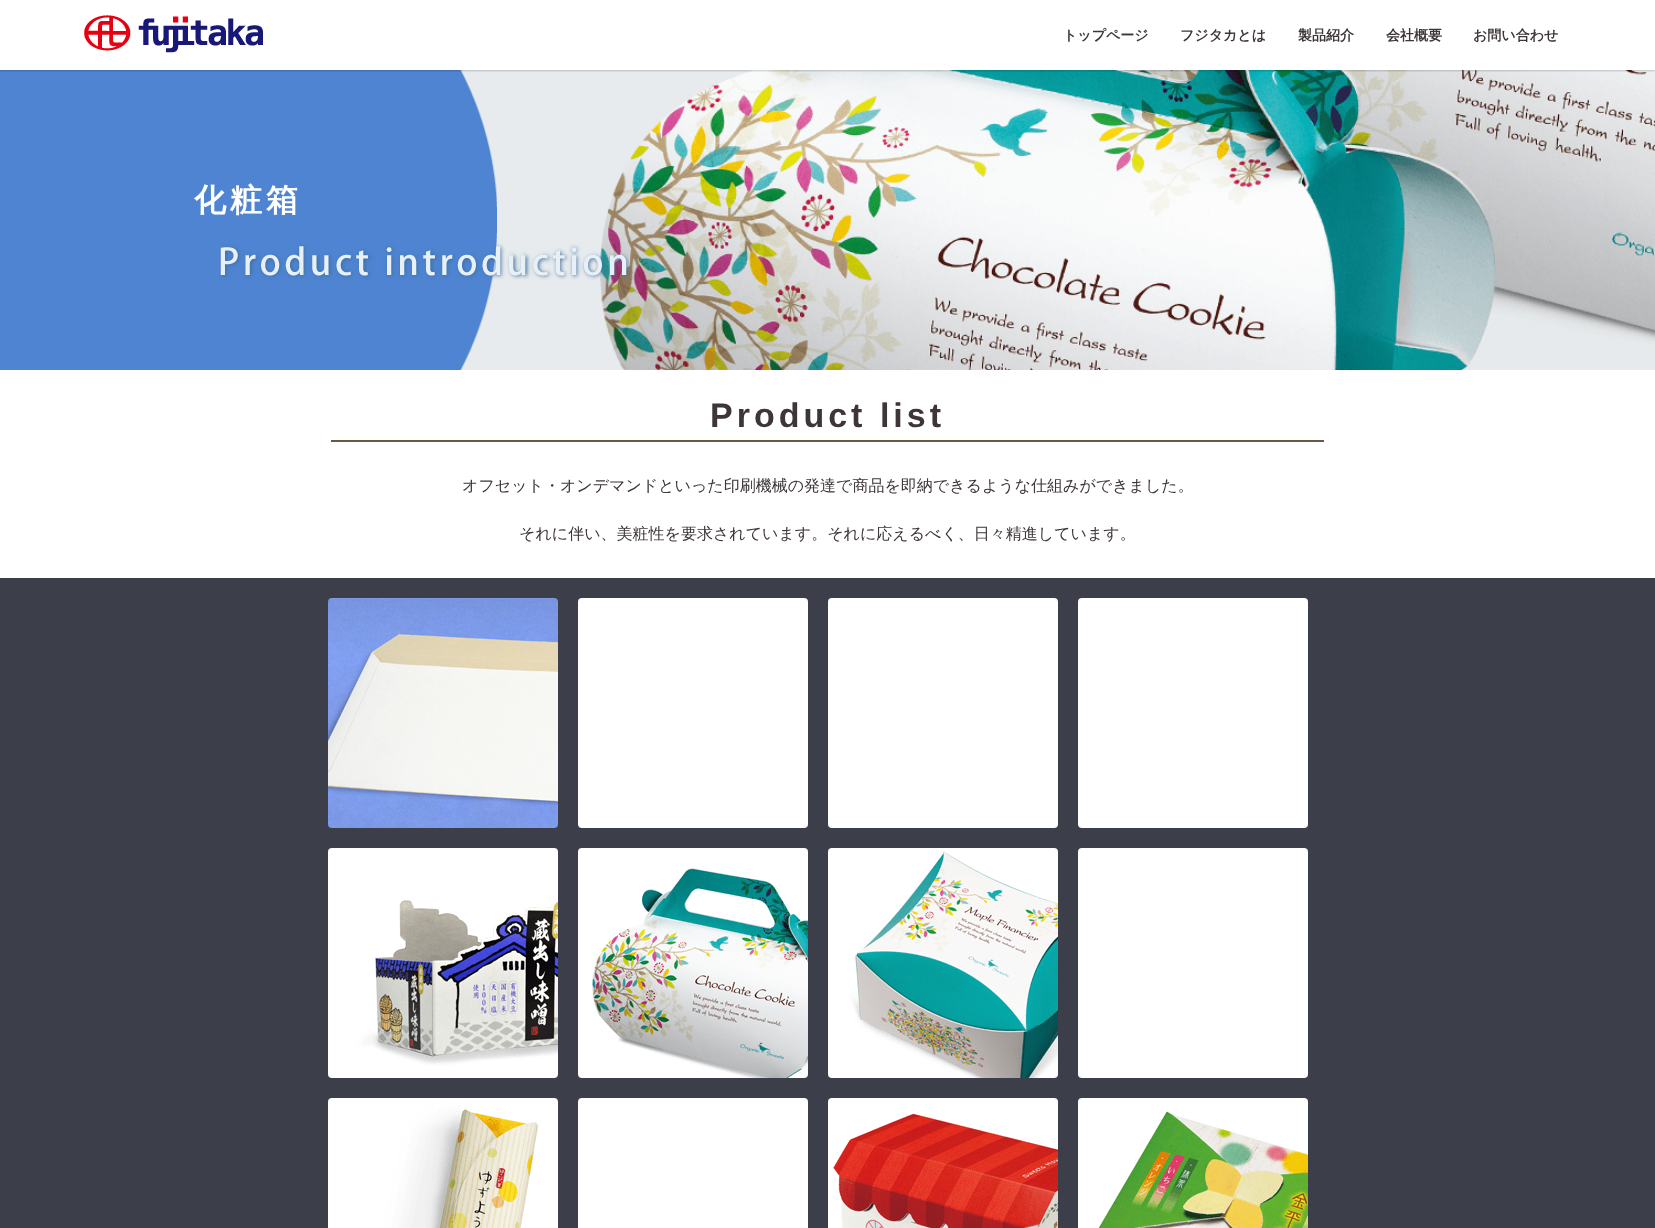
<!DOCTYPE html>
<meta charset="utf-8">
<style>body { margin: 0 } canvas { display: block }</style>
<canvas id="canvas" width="1655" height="1228"></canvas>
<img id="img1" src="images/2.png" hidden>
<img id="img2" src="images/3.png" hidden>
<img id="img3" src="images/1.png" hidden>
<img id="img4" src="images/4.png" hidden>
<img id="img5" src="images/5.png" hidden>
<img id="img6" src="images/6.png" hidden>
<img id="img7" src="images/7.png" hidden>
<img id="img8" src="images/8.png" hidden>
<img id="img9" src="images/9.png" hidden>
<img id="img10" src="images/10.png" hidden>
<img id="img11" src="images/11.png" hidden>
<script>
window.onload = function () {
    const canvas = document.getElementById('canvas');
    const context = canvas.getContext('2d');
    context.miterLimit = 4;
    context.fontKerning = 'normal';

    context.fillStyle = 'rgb(255, 255, 255)';
    context.fillRect(0, 0, 1655, 1228);
    context.drawImage(document.getElementById('img1'), 0, 70, 1655, 300);
    context.drawImage(document.getElementById('img2'), 0, 70, 497, 300);
    context.save();
    context.beginPath();
    context.rect(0, 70, 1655, 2);
    context.clip();
    context.fillStyle = 'rgba(0, 0, 0, 0.2)';
    context.filter = 'blur(1px)';
    context.beginPath();
    context.rect(0, 1, 1655, 70);
    context.fill();
    context.filter = 'none';
    context.restore();
    context.drawImage(document.getElementById('img3'), 84, 15, 179, 38);
    context.drawImage(document.getElementById('img4'), 219, 243, 412, 37);
    context.fillStyle = 'rgb(105, 89, 67)';
    context.fillRect(331, 440, 993, 2);
    context.fillStyle = 'rgb(60, 63, 74)';
    context.fillRect(0, 578, 1655, 650);
    context.drawImage(document.getElementById('img5'), 328, 598, 230, 230);
    context.fillStyle = 'rgb(255, 255, 255)';
    context.beginPath();
    context.roundRect(578, 598, 230, 230, 4);
    context.fill();
    context.beginPath();
    context.roundRect(828, 598, 230, 230, 4);
    context.fill();
    context.beginPath();
    context.roundRect(1078, 598, 230, 230, 4);
    context.fill();
    context.drawImage(document.getElementById('img6'), 328, 848, 230, 230);
    context.drawImage(document.getElementById('img7'), 578, 848, 230, 230);
    context.drawImage(document.getElementById('img8'), 828, 848, 230, 230);
    context.beginPath();
    context.roundRect(1078, 848, 230, 230, 4);
    context.fill();
    context.drawImage(document.getElementById('img9'), 328, 1098, 230, 130);
    context.beginPath();
    context.roundRect(578, 1098, 230, 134, 4);
    context.fill();
    context.drawImage(document.getElementById('img10'), 828, 1098, 230, 130);
    context.drawImage(document.getElementById('img11'), 1078, 1098, 230, 130);
    context.font = 'bold 14px WenQuanYi Zen Hei';
    context.fillStyle = 'rgb(61, 53, 54)';
    context.fillText('トップページ', 1063, 40);
    context.fillText('フジタカとは', 1180, 40);
    context.fillText('製品紹介', 1298, 40);
    context.fillText('会社概要', 1386, 40);
    context.fillText('お問い合わせ', 1473, 40);
    context.letterSpacing = '4px';
    context.font = 'bold 32px WenQuanYi Zen Hei';
    context.fillStyle = 'rgb(255, 255, 255)';
    context.fillText('化粧箱', 194, 211);
    context.font = 'bold 34px Liberation Sans';
    context.fillStyle = 'rgb(61, 53, 54)';
    context.fillText('Product list', 710, 427);
    context.letterSpacing = '0px';
    context.font = '500 16px WenQuanYi Zen Hei';
    context.fillText('オフセット・オンデマンドといった印刷機械の発達で商品を即納できるような仕組みができました。', 462, 491);
    context.fillText('それに伴い、美粧性を要求されています。それに応えるべく、日々精進しています。', 519, 539);
};
</script>
